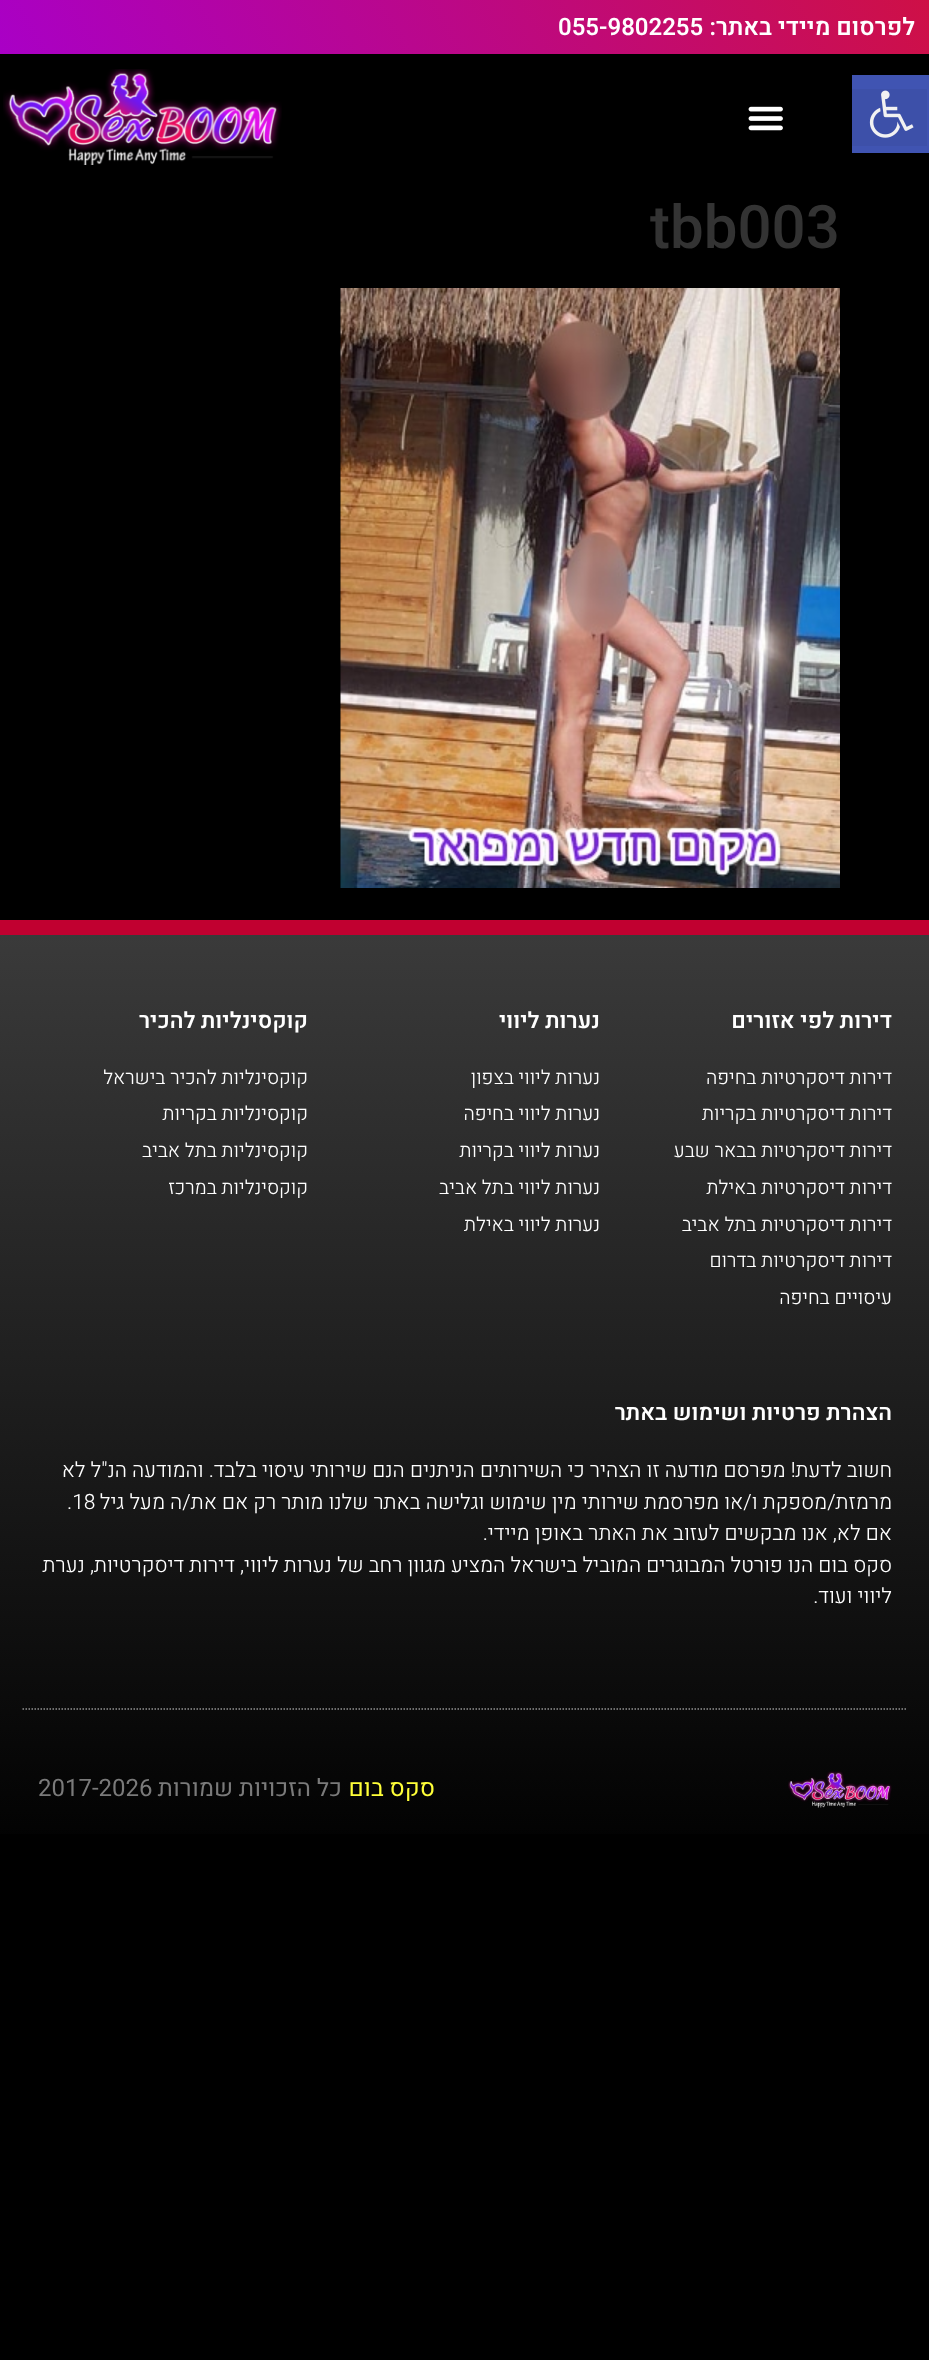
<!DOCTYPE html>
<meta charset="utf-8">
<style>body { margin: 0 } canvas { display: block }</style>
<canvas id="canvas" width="929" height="2360"></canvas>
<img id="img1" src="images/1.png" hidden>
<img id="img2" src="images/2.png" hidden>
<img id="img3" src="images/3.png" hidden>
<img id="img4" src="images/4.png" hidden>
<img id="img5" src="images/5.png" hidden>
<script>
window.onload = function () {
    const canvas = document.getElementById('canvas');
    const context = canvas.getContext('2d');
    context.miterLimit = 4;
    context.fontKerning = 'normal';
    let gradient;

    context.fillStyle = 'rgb(0, 0, 0)';
    context.fillRect(0, 0, 929, 2360);
    gradient = context.createLinearGradient(105, 235, 825, -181);
    gradient.addColorStop(0, 'rgb(169, 0, 198)');
    gradient.addColorStop(1, 'rgb(206, 16, 70)');
    context.fillStyle = gradient;
    context.fillRect(0, 0, 929, 54);
    context.drawImage(document.getElementById('img1'), 748, 106, 35, 25);
    context.drawImage(document.getElementById('img2'), 3, 69, 279, 96);
    context.fillStyle = 'rgb(64, 84, 178)';
    context.fillRect(852, 75, 77, 78);
    context.fillStyle = 'rgb(61, 80, 169)';
    context.fillRect(852, 89, 75, 57);
    context.drawImage(document.getElementById('img3'), 869, 90, 45, 48);
    context.drawImage(document.getElementById('img4'), 340, 288, 500, 600);
    gradient = context.createLinearGradient(465, 1874, 465, 935);
    gradient.addColorStop(0, 'rgb(0, 0, 0)');
    gradient.addColorStop(1, 'rgb(58, 58, 58)');
    context.fillStyle = gradient;
    context.fillRect(0, 935, 929, 899);
    context.fillStyle = 'rgb(193, 0, 48)';
    context.fillRect(0, 920, 929, 15);
    context.beginPath();
    context.moveTo(22.5, 1709);
    context.lineTo(907.5, 1709);
    context.strokeStyle = 'rgb(147, 147, 147)';
    context.lineWidth = 1.5;
    context.setLineDash([1.5, 1.5]);
    context.stroke();
    context.drawImage(document.getElementById('img5'), 788, 1771, 104, 37);
    context.direction = 'rtl';
    context.font = '600 24px Heebo';
    context.fillStyle = 'rgb(255, 255, 255)';
    context.fillText('לפרסום מיידי באתר:', 915, 35);
    context.direction = 'ltr';
    context.fillText('055-9802255', 558, 35);
    context.font = '500 60px Roboto';
    context.fillStyle = 'rgb(51, 51, 51)';
    context.fillText('tbb003', 650, 248);
    context.direction = 'rtl';
    context.font = '600 22.5px Heebo';
    context.fillStyle = 'rgb(255, 255, 255)';
    context.fillText('דירות לפי אזורים', 892, 1028);
    context.font = '300 19.5px Heebo';
    context.fillText('דירות דיסקרטיות בחיפה', 892, 1084);
    context.fillText('דירות דיסקרטיות בקריות', 892, 1120);
    context.fillText('דירות דיסקרטיות בבאר שבע', 892, 1157);
    context.fillText('דירות דיסקרטיות באילת', 892, 1194);
    context.fillText('דירות דיסקרטיות בתל אביב', 892, 1231);
    context.fillText('דירות דיסקרטיות בדרום', 892, 1267);
    context.fillText('עיסויים בחיפה', 892, 1304);
    context.font = '600 22.5px Heebo';
    context.fillText('נערות ליווי', 600, 1028);
    context.font = '300 19.5px Heebo';
    context.fillText('נערות ליווי בצפון', 600, 1084);
    context.fillText('נערות ליווי בחיפה', 600, 1120);
    context.fillText('נערות ליווי בקריות', 600, 1157);
    context.fillText('נערות ליווי בתל אביב', 600, 1194);
    context.fillText('נערות ליווי באילת', 600, 1231);
    context.font = '600 22.5px Heebo';
    context.fillText('קוקסינליות להכיר', 308, 1028);
    context.font = '300 19.5px Heebo';
    context.fillText('קוקסינליות להכיר בישראל', 308, 1084);
    context.fillText('קוקסינליות בקריות', 308, 1120);
    context.fillText('קוקסינליות בתל אביב', 308, 1157);
    context.fillText('קוקסינליות במרכז', 308, 1194);
    context.font = '600 22.5px Heebo';
    context.fillText('הצהרת פרטיות ושימוש באתר', 892, 1420);
    context.font = '300 21px Heebo';
    context.fillText('חשוב לדעת! מפרסם מודעה זו הצהיר כי השירותים הניתנים הנם שירותי עיסוי בלבד. והמודעה הנ"ל לא', 892, 1477);
    context.fillText('מרמזת/מספקת ו/או מפרסמת שירותי מין שימוש וגלישה באתר שלנו מותר רק אם את/ה מעל גיל', 892, 1509);
    context.direction = 'ltr';
    context.fillText('.18', 67, 1509);
    context.direction = 'rtl';
    context.fillText('אם לא, אנו מבקשים לעזוב את האתר באופן מיידי.', 892, 1540);
    context.fillText('סקס בום הנו פורטל המבוגרים המוביל בישראל המציע מגוון רחב של נערות ליווי, דירות דיסקרטיות, נערת', 892, 1572);
    context.fillText('ליווי ועוד.', 892, 1603);
    context.font = '24px Heebo';
    context.fillStyle = 'rgb(255, 255, 56)';
    context.fillText('סקס בום', 435, 1796);
    context.fillStyle = 'rgb(122, 122, 122)';
    context.fillText('כל הזכויות שמורות', 342, 1796);
    context.direction = 'ltr';
    context.fillText('2017-2026', 38, 1796);
};
</script>
